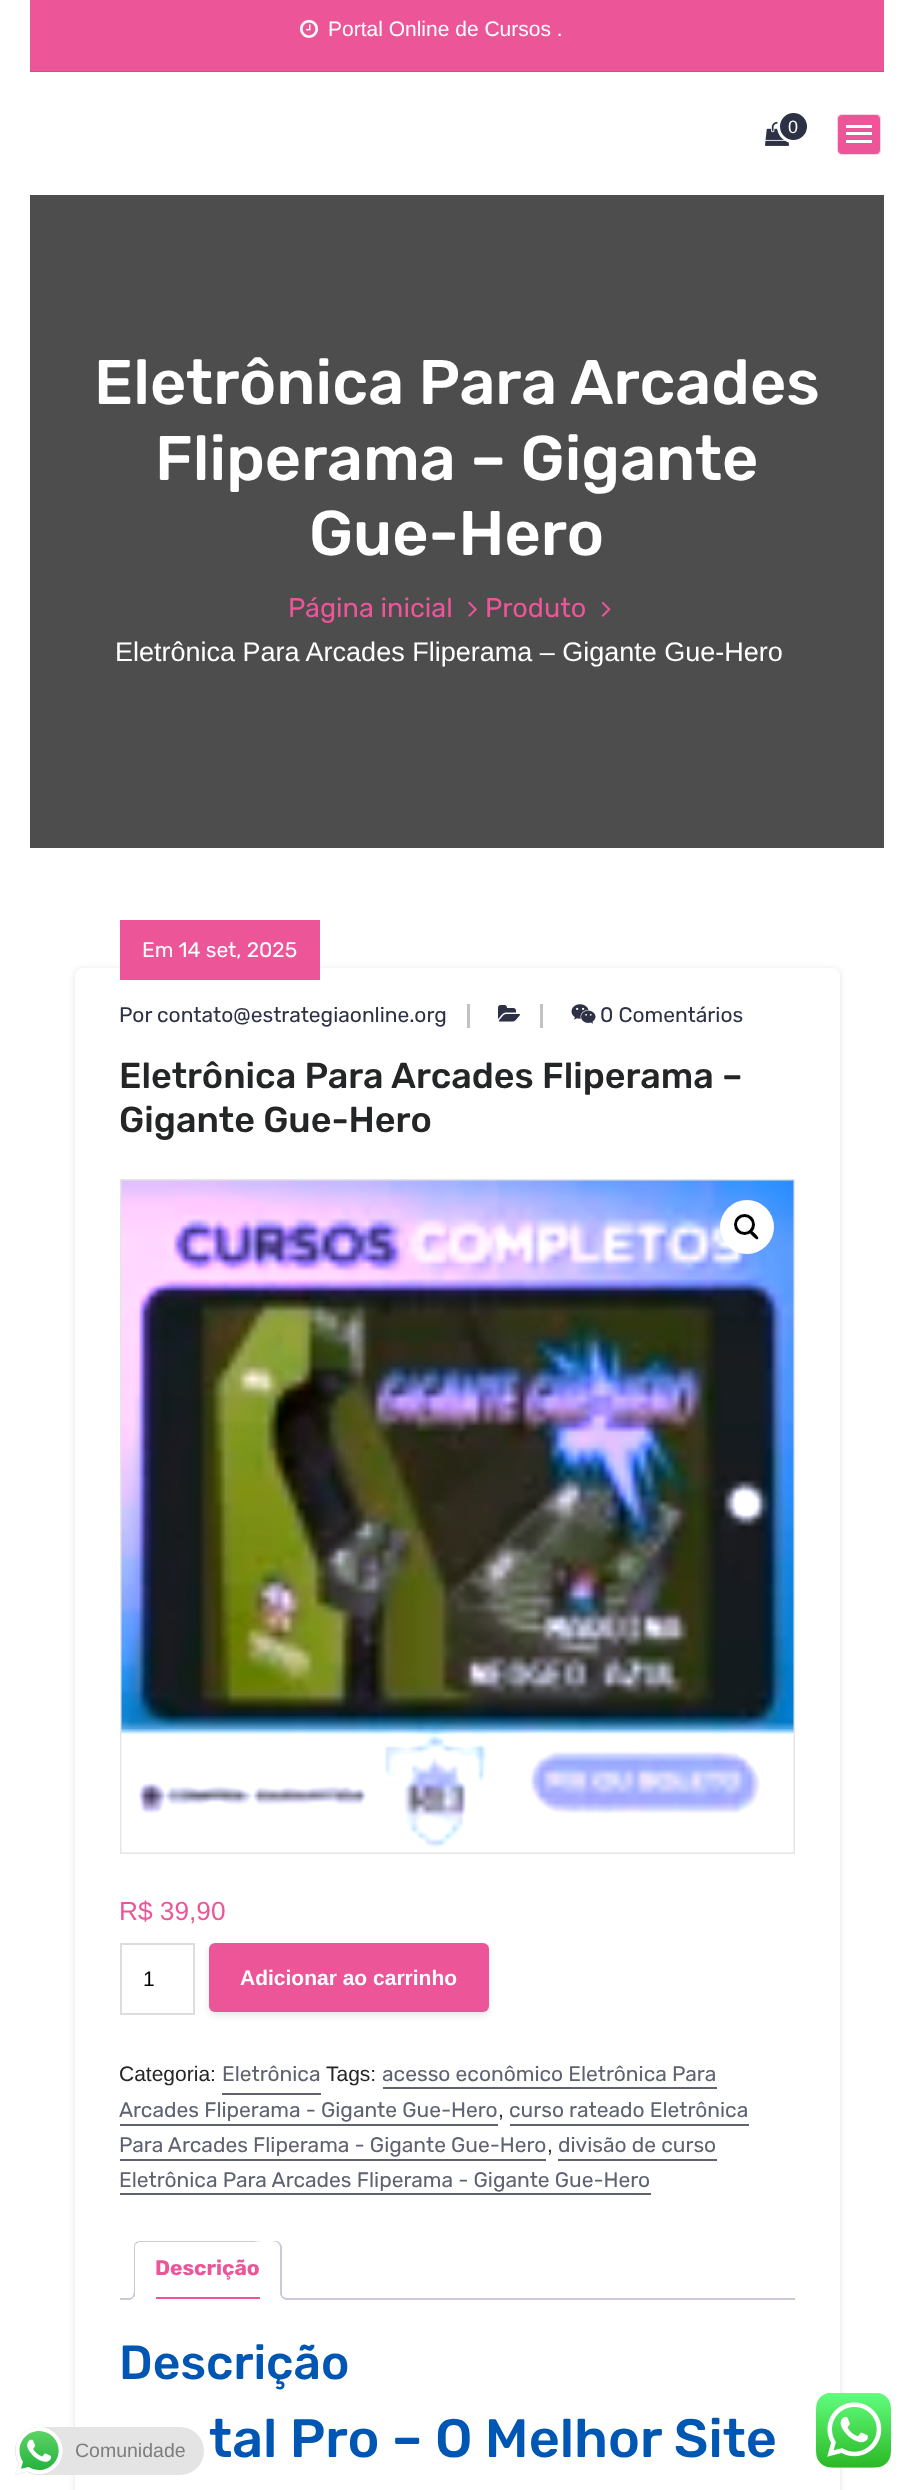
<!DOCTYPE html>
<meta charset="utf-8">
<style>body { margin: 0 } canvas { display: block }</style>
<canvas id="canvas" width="913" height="2490"></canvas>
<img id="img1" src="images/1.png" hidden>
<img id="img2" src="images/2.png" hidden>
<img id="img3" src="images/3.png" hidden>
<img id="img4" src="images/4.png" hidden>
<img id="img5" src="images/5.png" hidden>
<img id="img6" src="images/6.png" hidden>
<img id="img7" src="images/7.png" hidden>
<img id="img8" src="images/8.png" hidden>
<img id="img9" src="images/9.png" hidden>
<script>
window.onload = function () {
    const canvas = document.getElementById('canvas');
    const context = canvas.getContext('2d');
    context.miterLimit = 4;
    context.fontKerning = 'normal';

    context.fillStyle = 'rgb(255, 255, 255)';
    context.fillRect(0, 0, 913, 2490);
    context.fillStyle = 'rgb(236, 85, 152)';
    context.fillRect(30, 0, 854, 71);
    context.fillStyle = 'rgb(212, 77, 137)';
    context.fillRect(30, 71, 854, 1);
    context.drawImage(document.getElementById('img1'), 300, 19, 18, 19);
    context.drawImage(document.getElementById('img2'), 765, 121, 24, 25);
    context.fillStyle = 'rgb(44, 49, 69)';
    context.beginPath();
    context.arc(793.5, 126.5, 15, 0, 2 * Math.PI);
    context.fill();
    context.strokeStyle = 'rgb(255, 255, 255)';
    context.lineWidth = 3;
    context.stroke();
    context.fillStyle = 'rgb(236, 85, 152)';
    context.beginPath();
    context.roundRect(837.5, 114.5, 43, 40, 4.5);
    context.fill();
    context.lineWidth = 1;
    context.stroke();
    context.fillStyle = 'rgba(236, 85, 152, 0.5)';
    context.beginPath();
    context.roundRect(837, 114, 44, 41, 5);
    context.fill();
    context.beginPath();
    context.roundRect(837.5, 114.5, 43, 40, 4.5);
    context.strokeStyle = 'rgba(255, 255, 255, 0.5)';
    context.stroke();
    context.fillStyle = 'rgb(255, 255, 255)';
    context.fillRect(846, 125, 26, 3);
    context.fillRect(846, 132, 26, 3);
    context.fillRect(846, 140, 26, 3);
    context.fillStyle = 'rgb(77, 77, 77)';
    context.fillRect(30, 195, 854, 653);
    context.drawImage(document.getElementById('img3'), 468, 601, 9, 16);
    context.drawImage(document.getElementById('img4'), 601, 601, 10, 16);
    context.save();
    context.beginPath();
    context.moveTo(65, 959);
    context.lineTo(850, 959);
    context.lineTo(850, 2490);
    context.lineTo(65, 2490);
    context.closePath();
    context.moveTo(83, 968);
    context.lineTo(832, 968);
    context.bezierCurveTo(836.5, 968, 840, 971.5, 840, 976);
    context.lineTo(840, 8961);
    context.bezierCurveTo(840, 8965.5, 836.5, 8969, 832, 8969);
    context.lineTo(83, 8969);
    context.bezierCurveTo(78.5, 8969, 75, 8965.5, 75, 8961);
    context.lineTo(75, 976);
    context.bezierCurveTo(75, 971.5, 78.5, 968, 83, 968);
    context.closePath();
    context.clip('evenodd');
    context.fillStyle = 'rgba(44, 49, 59, 0.15)';
    context.filter = 'blur(3px)';
    context.beginPath();
    context.roundRect(75, 969, 765, 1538, 8);
    context.fill();
    context.filter = 'none';
    context.restore();
    context.fillStyle = 'rgb(236, 85, 152)';
    context.fillRect(120, 920, 200, 60);
    context.fillStyle = 'rgb(194, 194, 194)';
    context.fillRect(467, 1004, 3, 24);
    context.drawImage(document.getElementById('img5'), 498, 1005, 22, 17);
    context.fillRect(540, 1004, 3, 24);
    context.drawImage(document.getElementById('img6'), 571, 1004, 25, 20);
    context.strokeStyle = 'rgb(229, 229, 229)';
    context.lineWidth = 2;
    context.strokeRect(121, 1180, 673, 673);
    context.drawImage(document.getElementById('img7'), 121, 1180, 673, 673);
    context.fillStyle = 'rgb(255, 255, 255)';
    context.beginPath();
    context.arc(747, 1227, 27, 0, 2 * Math.PI);
    context.fill();
    context.beginPath();
    context.arc(744.5, 1224.5, 9, 0, 2 * Math.PI);
    context.strokeStyle = 'rgb(0, 0, 0)';
    context.lineWidth = 3;
    context.stroke();
    context.fillStyle = 'rgb(0, 0, 0)';
    context.beginPath();
    context.moveTo(749.5, 1230.5);
    context.bezierCurveTo(751, 1229, 754, 1232.5, 755, 1233.5);
    context.bezierCurveTo(755.5, 1234.5, 759.5, 1237, 758, 1239);
    context.bezierCurveTo(756.5, 1240.5, 753.5, 1236.5, 752.5, 1236);
    context.bezierCurveTo(752, 1235, 748, 1232, 749.5, 1230.5);
    context.closePath();
    context.fill();
    context.strokeStyle = 'rgb(221, 221, 221)';
    context.lineWidth = 2;
    context.strokeRect(121, 1944, 73, 70);
    context.fillStyle = 'rgba(0, 0, 0, 0.1)';
    context.filter = 'blur(3px)';
    context.beginPath();
    context.roundRect(209, 1946, 280, 69, 6);
    context.fill();
    context.filter = 'none';
    context.fillStyle = 'rgb(236, 85, 152)';
    context.beginPath();
    context.roundRect(209, 1943, 280, 69, 6);
    context.fill();
    context.fillStyle = 'rgb(94, 98, 113)';
    context.fillRect(222, 2093, 99, 2);
    context.fillRect(383, 2087, 334, 2);
    context.fillRect(120, 2124, 378, 2);
    context.fillRect(510, 2124, 239, 2);
    context.fillRect(120, 2159, 426, 2);
    context.fillRect(558, 2159, 159, 2);
    context.fillRect(120, 2193, 531, 2);
    context.fillStyle = 'rgb(207, 200, 216)';
    context.fillRect(120, 2298, 675, 2);
    context.fillStyle = 'rgb(255, 255, 255)';
    context.beginPath();
    context.roundRect(134, 2241, 148, 59, [6, 6, 0, 0]);
    context.fill();
    context.save();
    context.beginPath();
    context.rect(120, 2241, 675, 59);
    context.clip();
    context.fillStyle = 'rgb(207, 200, 216)';
    context.beginPath();
    context.moveTo(140, 2241);
    context.bezierCurveTo(138, 2241, 136, 2242, 135, 2243);
    context.lineTo(136, 2244);
    context.lineTo(139, 2242);
    context.lineTo(253, 2242);
    context.bezierCurveTo(254, 2242, 275, 2238, 279, 2244);
    context.lineTo(280, 2243);
    context.bezierCurveTo(279, 2242, 278, 2241, 276, 2241);
    context.closePath();
    context.fill();
    context.restore();
    context.fillStyle = 'rgb(207, 200, 216)';
    context.beginPath();
    context.moveTo(282, 2300);
    context.lineTo(282, 2247);
    context.bezierCurveTo(282, 2246, 281, 2244, 280, 2243);
    context.lineTo(279, 2244);
    context.lineTo(280, 2247);
    context.lineTo(280, 2298);
    context.closePath();
    context.fill();
    context.fillStyle = 'rgb(255, 255, 255)';
    context.beginPath();
    context.moveTo(282, 2300);
    context.lineTo(134, 2300);
    context.lineTo(135, 2298);
    context.lineTo(280, 2298);
    context.closePath();
    context.fill();
    context.fillStyle = 'rgb(207, 200, 216)';
    context.beginPath();
    context.moveTo(135, 2243);
    context.bezierCurveTo(134, 2244, 134, 2246, 134, 2247);
    context.lineTo(134, 2299);
    context.lineTo(135, 2298);
    context.lineTo(135, 2247);
    context.bezierCurveTo(135, 2246, 135, 2245, 136, 2244);
    context.closePath();
    context.fill();
    context.fillStyle = 'rgb(236, 85, 152)';
    context.fillRect(156, 2297, 104, 2);
    context.save();
    context.beginPath();
    context.rect(120, 2241, 675, 59);
    context.clip();
    context.fillStyle = 'rgb(255, 255, 255)';
    context.beginPath();
    context.moveTo(131, 2299);
    context.lineTo(131, 2303);
    context.bezierCurveTo(136.5, 2303, 138, 2300, 138, 2295);
    context.lineTo(135, 2295);
    context.bezierCurveTo(134.5, 2297, 133, 2298.5, 131, 2299);
    context.closePath();
    context.fill();
    context.restore();
    context.fillStyle = 'rgb(207, 200, 216)';
    context.beginPath();
    context.moveTo(127.5, 2292);
    context.lineTo(135, 2292);
    context.bezierCurveTo(135, 2297.5, 133, 2299.5, 127.5, 2299.5);
    context.closePath();
    context.moveTo(127.5, 2292);
    context.lineTo(133.5, 2292);
    context.bezierCurveTo(133.5, 2296.5, 132, 2298, 127.5, 2298);
    context.closePath();
    context.fill('evenodd');
    context.save();
    context.beginPath();
    context.rect(120, 2241, 675, 59);
    context.clip();
    context.fillStyle = 'rgb(255, 255, 255)';
    context.beginPath();
    context.moveTo(278, 2295);
    context.bezierCurveTo(278, 2300, 279.5, 2303, 285, 2303);
    context.lineTo(285, 2299.5);
    context.bezierCurveTo(283, 2299, 281, 2297, 280.5, 2295);
    context.closePath();
    context.fill();
    context.restore();
    context.beginPath();
    context.moveTo(280.5, 2292);
    context.lineTo(288, 2292);
    context.lineTo(288, 2299.5);
    context.bezierCurveTo(284, 2299.5, 280.5, 2298, 280.5, 2293.5);
    context.closePath();
    context.moveTo(282, 2292);
    context.lineTo(288, 2292);
    context.lineTo(288, 2298);
    context.bezierCurveTo(285, 2298, 282, 2297, 282, 2293.5);
    context.closePath();
    context.fill('evenodd');
    context.drawImage(document.getElementById('img8'), 816, 2393, 75, 75);
    context.fillStyle = 'rgb(228, 228, 228)';
    context.beginPath();
    context.roundRect(15, 2427, 189, 48, 24);
    context.fill();
    context.drawImage(document.getElementById('img9'), 15, 2427, 48, 48);
    context.font = '21px Liberation Sans';
    context.fillStyle = 'rgb(255, 255, 255)';
    context.fillText('Portal Online de Cursos .', 328, 36);
    context.font = '18px Liberation Sans';
    context.fillText('0', 788, 133);
    context.font = '500 63px Rubik';
    context.fillText('Eletrônica Para Arcades', 94, 404);
    context.fillText('Fliperama – Gigante', 155, 480);
    context.fillText('Gue-Hero', 309, 555);
    context.font = '27px Rubik';
    context.fillStyle = 'rgb(236, 85, 152)';
    context.fillText('Página inicial', 288, 617);
    context.fillText('Produto', 485, 617);
    context.font = '27px Liberation Sans';
    context.fillStyle = 'rgb(255, 255, 255)';
    context.fillText('Eletrônica Para Arcades Fliperama – Gigante Gue-Hero', 115, 661);
    context.font = '21px Rubik';
    context.fillText('Em 14 set, 2025', 142, 957);
    context.fillStyle = 'rgb(44, 49, 69)';
    context.fillText('Por contato@estrategiaonline.org', 119, 1022);
    context.fillText('0 Comentários', 600, 1022);
    context.font = '500 36px Rubik';
    context.fillStyle = 'rgb(36, 37, 38)';
    context.fillText('Eletrônica Para Arcades Fliperama –', 119, 1088);
    context.fillText('Gigante Gue-Hero', 119, 1132);
    context.font = '26.25px Liberation Sans';
    context.fillStyle = 'rgb(236, 85, 152)';
    context.fillText('R$ 39,90', 119, 1920);
    context.font = '21px Liberation Sans';
    context.fillStyle = 'rgb(0, 0, 0)';
    context.fillText('1', 143, 1986);
    context.font = 'bold 21px Liberation Sans';
    context.fillStyle = 'rgb(255, 255, 255)';
    context.fillText('Adicionar ao carrinho', 240, 1985);
    context.font = '21px Liberation Sans';
    context.fillStyle = 'rgb(36, 37, 38)';
    context.fillText('Categoria:', 119, 2081);
    context.font = '21px Rubik';
    context.fillStyle = 'rgb(94, 98, 113)';
    context.fillText('Eletrônica', 222, 2081);
    context.font = '21px Liberation Sans';
    context.fillStyle = 'rgb(36, 37, 38)';
    context.fillText('Tags:', 326, 2081);
    context.font = '21px Rubik';
    context.fillStyle = 'rgb(94, 98, 113)';
    context.fillText('acesso econômico Eletrônica Para', 382, 2081);
    context.fillText('Arcades Fliperama - Gigante Gue-Hero', 119, 2117);
    context.font = '21px Liberation Sans';
    context.fillStyle = 'rgb(36, 37, 38)';
    context.fillText(',', 498, 2117);
    context.font = '21px Rubik';
    context.fillStyle = 'rgb(94, 98, 113)';
    context.fillText('curso rateado Eletrônica', 509, 2117);
    context.fillText('Para Arcades Fliperama - Gigante Gue-Hero', 119, 2152);
    context.font = '21px Liberation Sans';
    context.fillStyle = 'rgb(36, 37, 38)';
    context.fillText(',', 547, 2152);
    context.font = '21px Rubik';
    context.fillStyle = 'rgb(94, 98, 113)';
    context.fillText('divisão de curso', 558, 2152);
    context.fillText('Eletrônica Para Arcades Fliperama - Gigante Gue-Hero', 119, 2187);
    context.font = 'bold 21px Rubik';
    context.fillStyle = 'rgb(236, 85, 152)';
    context.fillText('Descrição', 155, 2275);
    context.font = '500 48px Rubik';
    context.fillStyle = 'rgb(0, 86, 179)';
    context.fillText('Descrição', 119, 2379);
    context.font = '500 54px Rubik';
    context.fillText('tal Pro – O Melhor Site', 209, 2457);
    context.font = '19.5px Liberation Sans';
    context.fillStyle = 'rgb(127, 125, 125)';
    context.fillText('Comunidade', 75, 2457);
};
</script>
